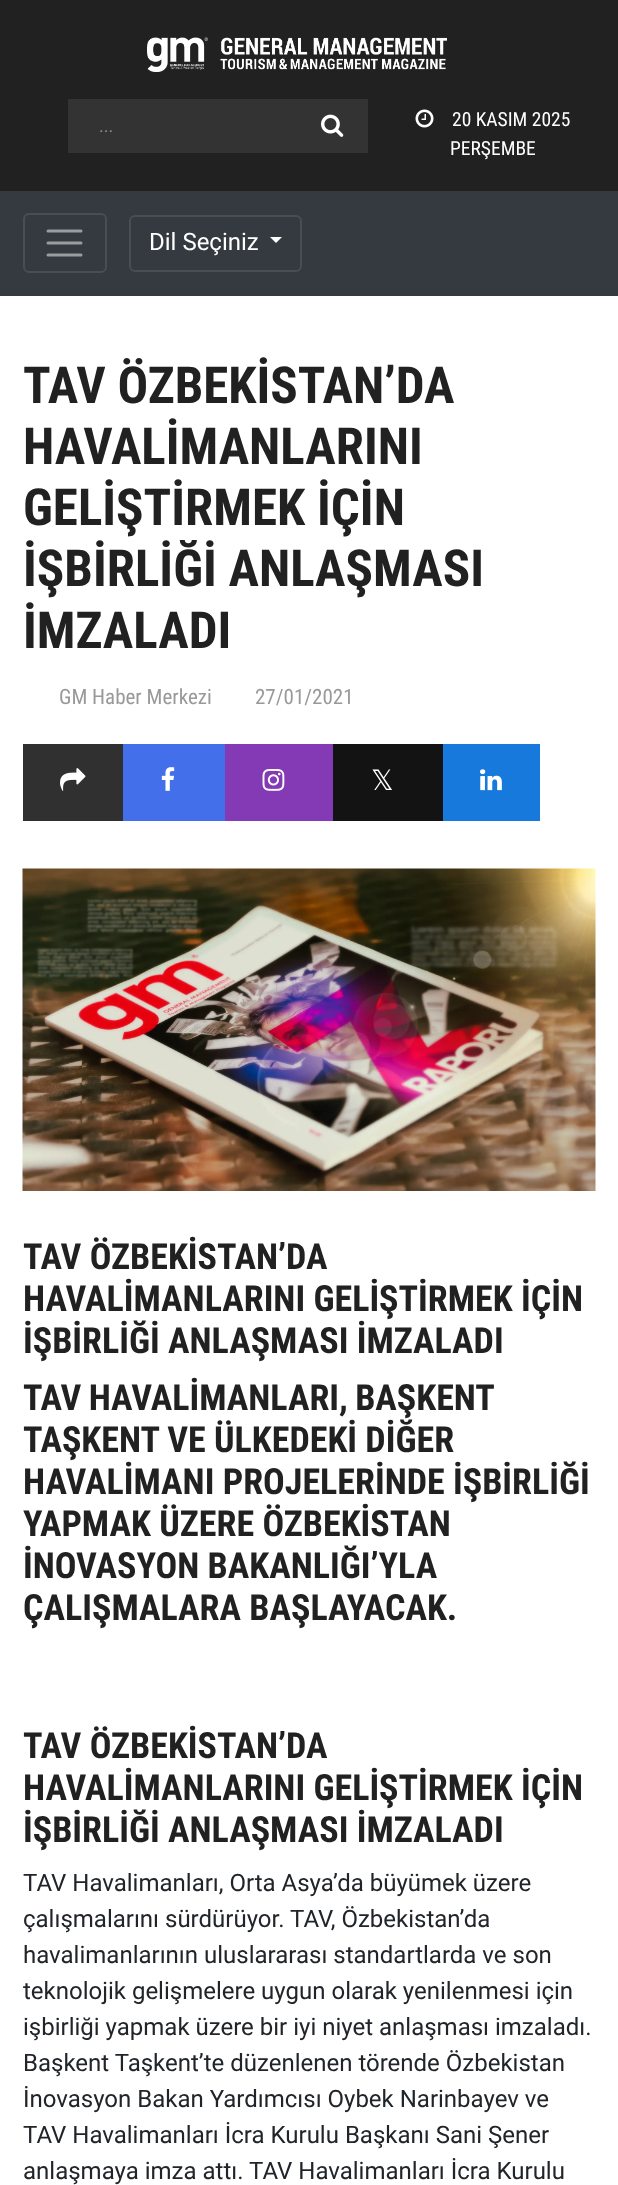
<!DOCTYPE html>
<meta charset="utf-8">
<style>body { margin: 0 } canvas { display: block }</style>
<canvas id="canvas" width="618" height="2185"></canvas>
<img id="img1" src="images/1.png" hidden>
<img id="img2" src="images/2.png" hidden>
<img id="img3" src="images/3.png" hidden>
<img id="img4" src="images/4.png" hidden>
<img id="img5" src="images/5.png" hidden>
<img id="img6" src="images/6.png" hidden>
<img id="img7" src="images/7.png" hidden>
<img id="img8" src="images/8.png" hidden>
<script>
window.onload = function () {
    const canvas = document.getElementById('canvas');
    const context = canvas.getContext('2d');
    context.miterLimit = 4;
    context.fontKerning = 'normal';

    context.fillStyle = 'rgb(255, 255, 255)';
    context.fillRect(0, 0, 618, 2185);
    context.fillStyle = 'rgb(33, 33, 33)';
    context.fillRect(0, 0, 618, 191);
    context.drawImage(document.getElementById('img1'), 147, 37, 300, 35);
    context.fillStyle = 'rgb(51, 51, 51)';
    context.fillRect(68, 99, 300, 54);
    context.drawImage(document.getElementById('img2'), 321, 114, 23, 23);
    context.drawImage(document.getElementById('img3'), 415, 109, 19, 19);
    context.fillStyle = 'rgb(52, 58, 64)';
    context.fillRect(0, 191, 618, 105);
    context.beginPath();
    context.roundRect(24, 214, 82, 58, 5);
    context.strokeStyle = 'rgb(72, 78, 83)';
    context.lineWidth = 2;
    context.stroke();
    context.beginPath();
    context.moveTo(48, 231);
    context.lineTo(81, 231);
    context.moveTo(48, 243);
    context.lineTo(81, 243);
    context.moveTo(48, 255);
    context.lineTo(81, 255);
    context.strokeStyle = 'rgb(154, 157, 160)';
    context.lineWidth = 3;
    context.lineCap = 'round';
    context.stroke();
    context.beginPath();
    context.roundRect(130, 216, 171, 55, 5);
    context.strokeStyle = 'rgb(72, 78, 83)';
    context.lineWidth = 2;
    context.stroke();
    context.fillStyle = 'rgb(255, 255, 255)';
    context.beginPath();
    context.moveTo(270, 237);
    context.lineTo(282, 237);
    context.lineTo(276, 243);
    context.closePath();
    context.fill();
    context.fillStyle = 'rgb(48, 48, 48)';
    context.fillRect(23, 744, 100, 77);
    context.drawImage(document.getElementById('img4'), 60, 768, 26, 23);
    context.fillStyle = 'rgb(67, 111, 235)';
    context.fillRect(123, 744, 102, 77);
    context.drawImage(document.getElementById('img5'), 161, 767, 14, 24);
    context.fillStyle = 'rgb(131, 58, 180)';
    context.fillRect(225, 744, 108, 77);
    context.drawImage(document.getElementById('img6'), 262, 769, 23, 22);
    context.fillStyle = 'rgb(19, 19, 19)';
    context.fillRect(333, 744, 110, 77);
    context.fillStyle = 'rgb(24, 121, 221)';
    context.fillRect(443, 744, 97, 77);
    context.drawImage(document.getElementById('img7'), 480, 769, 22, 22);
    context.drawImage(document.getElementById('img8'), 22, 868, 574, 323);
    context.font = '18px Roboto Condensed';
    context.fillStyle = 'rgb(134, 142, 150)';
    context.fillText('...', 99, 132);
    context.font = '19.5px Roboto Condensed';
    context.fillStyle = 'rgb(255, 255, 255)';
    context.fillText('20 KASIM 2025', 452, 126);
    context.fillText('PERŞEMBE', 450, 155);
    context.font = '24px Roboto';
    context.fillText('Dil Seçiniz', 149, 250);
    context.font = 'bold 51px Roboto Condensed';
    context.fillStyle = 'rgb(33, 33, 33)';
    context.fillText('TAV ÖZBEKİSTAN’DA', 23, 403);
    context.fillText('HAVALİMANLARINI', 23, 464);
    context.fillText('GELİŞTİRMEK İÇİN', 23, 525);
    context.fillText('İŞBİRLİĞİ ANLAŞMASI', 23, 586);
    context.fillText('İMZALADI', 23, 648);
    context.font = '21px Roboto Condensed';
    context.fillStyle = 'rgb(153, 153, 153)';
    context.fillText('GM Haber Merkezi', 59, 704);
    context.fillText('27/01/2021', 255, 704);
    context.font = '28px DejaVu Sans';
    context.fillStyle = 'rgb(255, 255, 255)';
    context.fillText('𝕏', 371, 790);
    context.font = 'bold 36px Roboto Condensed';
    context.fillStyle = 'rgb(33, 33, 33)';
    context.fillText('TAV ÖZBEKİSTAN’DA', 23, 1269);
    context.fillText('HAVALİMANLARINI GELİŞTİRMEK İÇİN', 23, 1311);
    context.fillText('İŞBİRLİĞİ ANLAŞMASI İMZALADI', 23, 1353);
    context.wordSpacing = '-1px';
    context.fillText('TAV HAVALİMANLARI, BAŞKENT', 23, 1410);
    context.wordSpacing = '0px';
    context.fillText('TAŞKENT VE ÜLKEDEKİ DİĞER', 23, 1452);
    context.fillText('HAVALİMANI PROJELERİNDE İŞBİRLİĞİ', 23, 1494);
    context.fillText('YAPMAK ÜZERE ÖZBEKİSTAN', 23, 1536);
    context.fillText('İNOVASYON BAKANLIĞI’YLA', 23, 1578);
    context.fillText('ÇALIŞMALARA BAŞLAYACAK.', 23, 1620);
    context.fillText('TAV ÖZBEKİSTAN’DA', 23, 1758);
    context.fillText('HAVALİMANLARINI GELİŞTİRMEK İÇİN', 23, 1800);
    context.fillText('İŞBİRLİĞİ ANLAŞMASI İMZALADI', 23, 1842);
    context.font = '24px Roboto';
    context.fillStyle = 'rgb(33, 37, 41)';
    context.fillText('TAV Havalimanları, Orta Asya’da büyümek üzere', 23, 1891);
    context.fillText('çalışmalarını sürdürüyor. TAV, Özbekistan’da', 23, 1927);
    context.fillText('havalimanlarının uluslararası standartlarda ve son', 23, 1963);
    context.fillText('teknolojik gelişmelere uygun olarak yenilenmesi için', 23, 1999);
    context.fillText('işbirliği yapmak üzere bir iyi niyet anlaşması imzaladı.', 23, 2035);
    context.fillText('Başkent Taşkent’te düzenlenen törende Özbekistan', 23, 2071);
    context.fillText('İnovasyon Bakan Yardımcısı Oybek Narinbayev ve', 23, 2107);
    context.fillText('TAV Havalimanları İcra Kurulu Başkanı Sani Şener', 23, 2143);
    context.fillText('anlaşmaya imza attı.', 23, 2179);
    context.fillText('TAV Havalimanları İcra Kurulu', 249, 2179);
};
</script>
